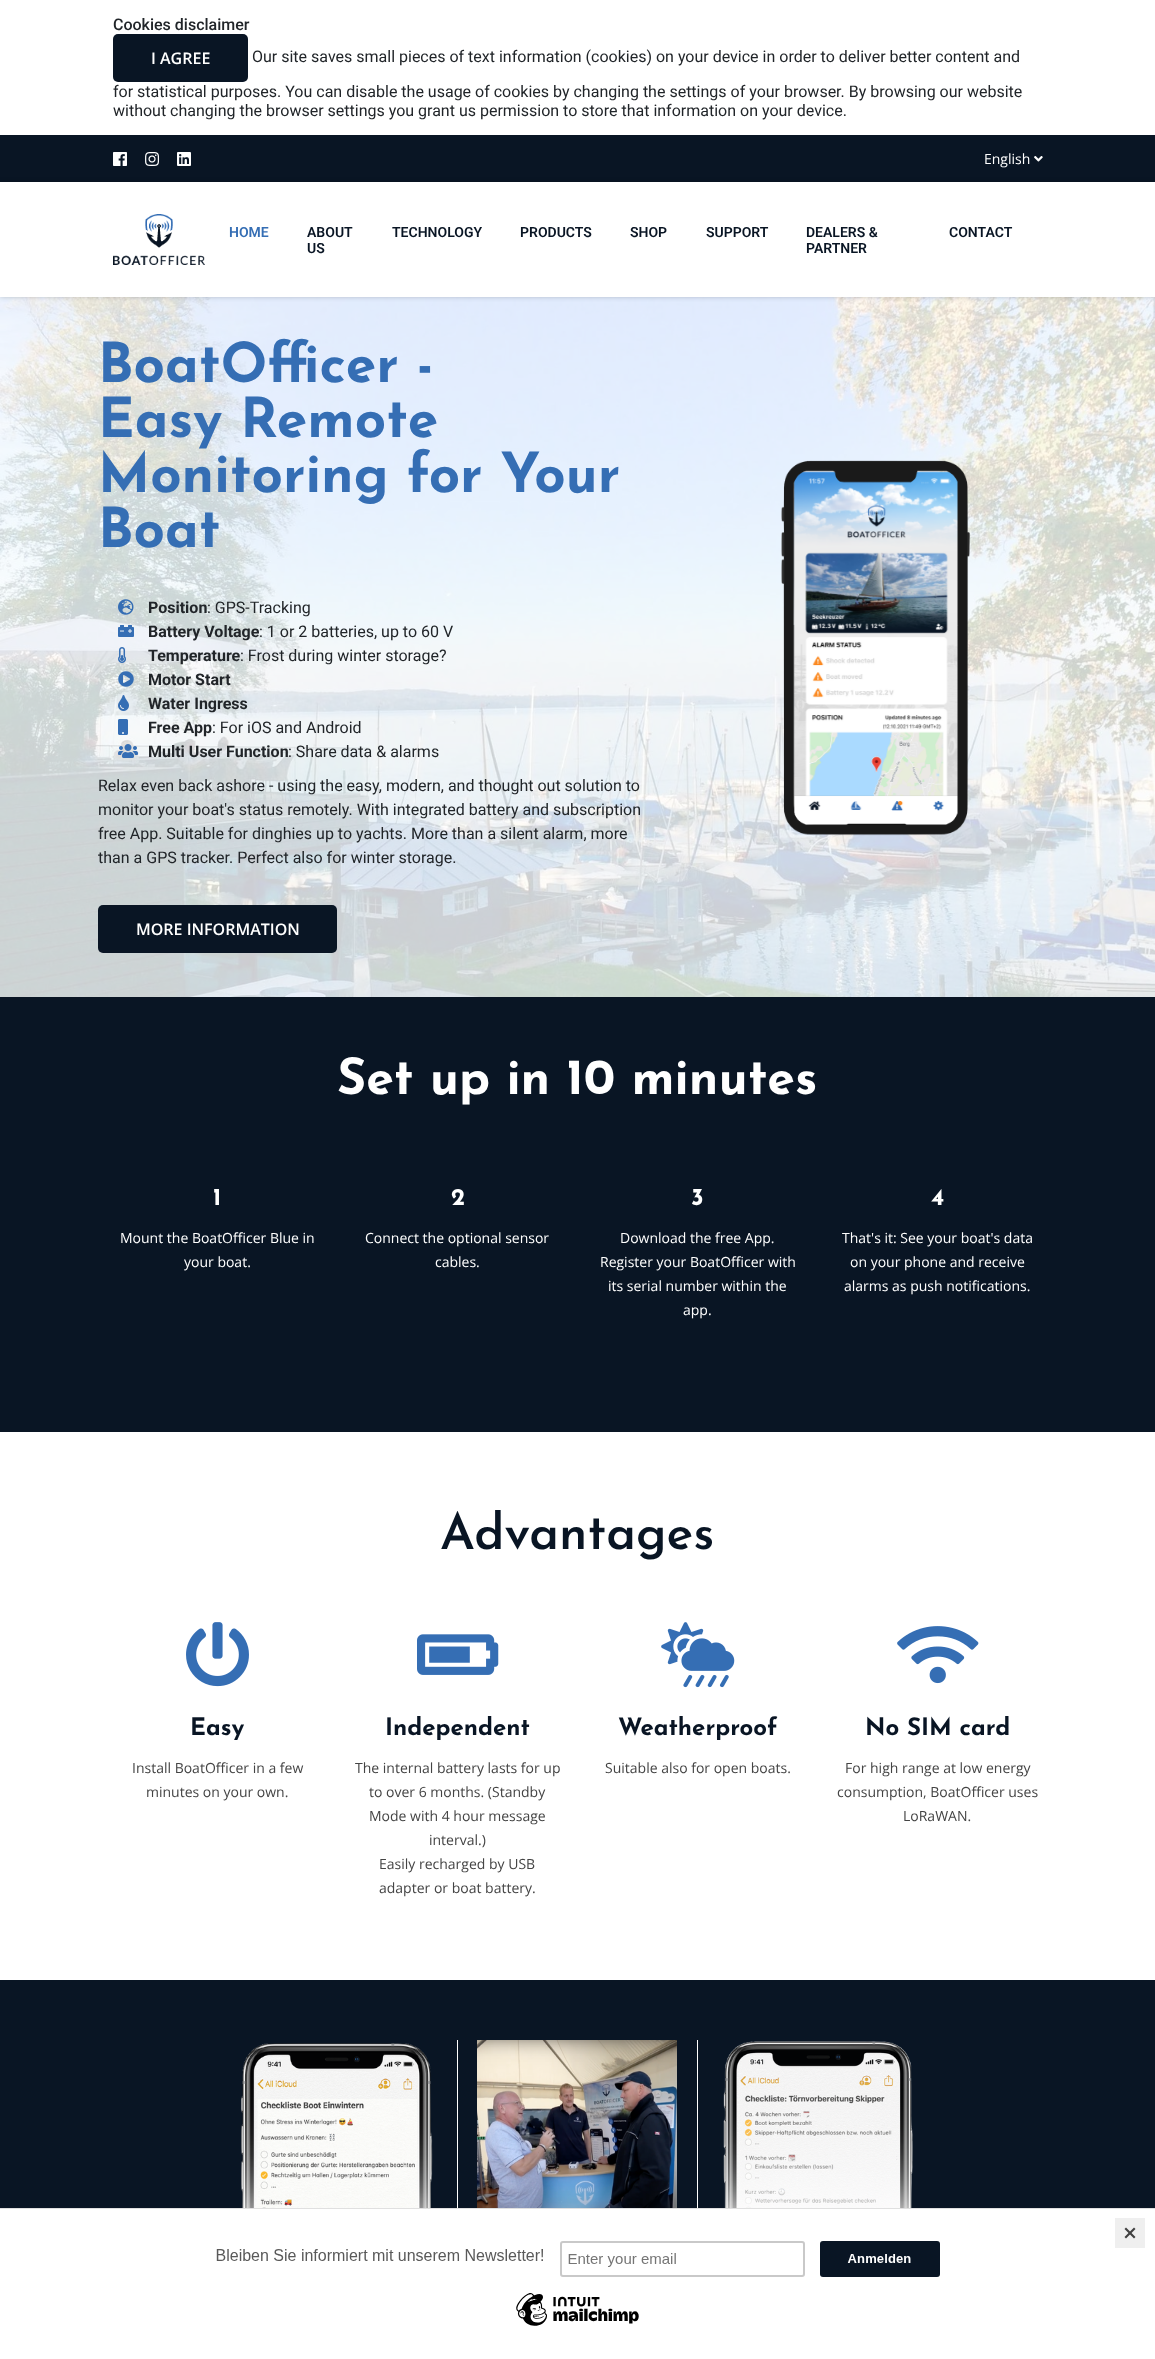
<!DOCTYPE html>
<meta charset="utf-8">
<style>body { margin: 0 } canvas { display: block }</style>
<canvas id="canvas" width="1155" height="2359"></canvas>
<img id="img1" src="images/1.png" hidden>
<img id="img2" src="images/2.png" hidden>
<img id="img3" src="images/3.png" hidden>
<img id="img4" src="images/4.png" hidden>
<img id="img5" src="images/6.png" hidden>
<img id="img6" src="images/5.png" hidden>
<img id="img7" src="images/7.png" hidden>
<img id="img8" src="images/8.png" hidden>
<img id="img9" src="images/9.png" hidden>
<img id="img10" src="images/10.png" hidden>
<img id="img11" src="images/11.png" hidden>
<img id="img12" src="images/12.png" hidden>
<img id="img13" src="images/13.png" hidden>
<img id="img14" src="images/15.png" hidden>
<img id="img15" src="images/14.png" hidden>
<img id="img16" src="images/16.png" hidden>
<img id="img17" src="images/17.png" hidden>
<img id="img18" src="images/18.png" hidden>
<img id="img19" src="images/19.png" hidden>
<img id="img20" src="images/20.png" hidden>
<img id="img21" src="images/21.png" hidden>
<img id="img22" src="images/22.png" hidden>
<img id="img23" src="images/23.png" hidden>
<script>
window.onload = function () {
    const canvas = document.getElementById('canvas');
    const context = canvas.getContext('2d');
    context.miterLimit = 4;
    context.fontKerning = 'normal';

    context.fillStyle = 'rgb(255, 255, 255)';
    context.fillRect(0, 0, 1155, 2359);
    context.fillStyle = 'rgb(9, 21, 36)';
    context.beginPath();
    context.roundRect(113, 34, 135, 48, 5);
    context.fill();
    context.fillRect(0, 135, 1155, 47);
    context.drawImage(document.getElementById('img1'), 113, 152, 14, 14);
    context.drawImage(document.getElementById('img2'), 145, 152, 15, 14);
    context.drawImage(document.getElementById('img3'), 177, 152, 14, 14);
    context.drawImage(document.getElementById('img4'), 1034, 156, 9, 6);
    context.drawImage(document.getElementById('img5'), 0, 297, 1155, 700);
    context.save();
    context.beginPath();
    context.moveTo(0, 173);
    context.lineTo(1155, 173);
    context.lineTo(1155, 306);
    context.lineTo(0, 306);
    context.closePath();
    context.moveTo(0, 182);
    context.lineTo(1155, 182);
    context.lineTo(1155, 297);
    context.lineTo(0, 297);
    context.closePath();
    context.clip('evenodd');
    context.fillStyle = 'rgba(0, 0, 0, 0.2)';
    context.filter = 'blur(2.5px)';
    context.beginPath();
    context.rect(0, 182, 1155, 115);
    context.fill();
    context.filter = 'none';
    context.restore();
    context.drawImage(document.getElementById('img6'), 113, 214, 92, 51);
    context.drawImage(document.getElementById('img7'), 118, 599, 16, 16);
    context.drawImage(document.getElementById('img8'), 118, 625, 16, 12);
    context.drawImage(document.getElementById('img9'), 118, 647, 8, 16);
    context.drawImage(document.getElementById('img10'), 118, 671, 16, 16);
    context.drawImage(document.getElementById('img11'), 118, 695, 11, 16);
    context.drawImage(document.getElementById('img12'), 118, 719, 10, 16);
    context.drawImage(document.getElementById('img13'), 118, 744, 20, 14);
    context.beginPath();
    context.roundRect(98, 905, 239, 48, 5);
    context.fill();
    context.drawImage(document.getElementById('img14'), 793, 471, 166, 355);
    context.drawImage(document.getElementById('img15'), 781, 460, 189, 376);
    context.fillRect(0, 997, 1155, 435);
    context.drawImage(document.getElementById('img16'), 186, 1622, 63, 65);
    context.drawImage(document.getElementById('img17'), 417, 1634, 82, 41);
    context.drawImage(document.getElementById('img18'), 661, 1622, 74, 66);
    context.drawImage(document.getElementById('img19'), 897, 1626, 82, 58);
    context.fillRect(0, 1980, 1155, 228);
    context.fillStyle = 'rgb(255, 255, 255)';
    context.fillRect(457, 2040, 1, 168);
    context.drawImage(document.getElementById('img20'), 241, 2043, 192, 165);
    context.fillRect(697, 2040, 1, 168);
    context.drawImage(document.getElementById('img21'), 477, 2040, 200, 168);
    context.drawImage(document.getElementById('img22'), 723, 2041, 190, 167);
    context.fillStyle = 'rgb(224, 224, 224)';
    context.fillRect(0, 2208, 1155, 1);
    context.drawImage(document.getElementById('img23'), 216, 2241, 724, 85);
    context.fillStyle = 'rgb(239, 239, 239)';
    context.fillRect(1115, 2218, 30, 30);
    context.fillStyle = 'rgb(65, 65, 65)';
    context.beginPath();
    context.moveTo(1134, 2227.5);
    context.lineTo(1135.5, 2229);
    context.lineTo(1126, 2238.5);
    context.lineTo(1124.5, 2237);
    context.closePath();
    context.fill();
    context.beginPath();
    context.moveTo(1124.5, 2229);
    context.lineTo(1126, 2227.5);
    context.lineTo(1135.5, 2237);
    context.lineTo(1134, 2238.5);
    context.closePath();
    context.fill();
    context.font = '500 16px Roboto';
    context.fillStyle = 'rgb(33, 37, 41)';
    context.fillText('Cookies disclaimer', 113, 30);
    context.font = '600 16px Open Sans';
    context.fillStyle = 'rgb(255, 255, 255)';
    context.fillText('I AGREE', 151, 64);
    context.font = '16px Roboto';
    context.fillStyle = 'rgb(33, 37, 41)';
    context.fillText('Our site saves small pieces of text information (cookies) on your device in order to deliver better content and', 252, 62);
    context.fillText('for statistical purposes. You can disable the usage of cookies by changing the settings of your browser. By browsing our website', 113, 97);
    context.fillText('without changing the browser settings you grant us permission to store that information on your device.', 113, 116);
    context.font = '14px Open Sans';
    context.fillStyle = 'rgb(255, 255, 255)';
    context.fillText('English', 984, 164);
    context.font = '600 14px Roboto';
    context.fillStyle = 'rgb(53, 110, 180)';
    context.fillText('HOME', 229, 237);
    context.fillStyle = 'rgb(9, 21, 36)';
    context.fillText('ABOUT', 307, 237);
    context.fillText('US', 307, 253);
    context.fillText('TECHNOLOGY', 392, 237);
    context.fillText('PRODUCTS', 520, 237);
    context.fillText('SHOP', 630, 237);
    context.fillText('SUPPORT', 706, 237);
    context.fillText('DEALERS &', 806, 237);
    context.fillText('PARTNER', 806, 253);
    context.fillText('CONTACT', 949, 237);
    context.font = '100 55px Josefin Sans';
    context.fillStyle = 'rgb(53, 110, 180)';
    context.fillText('BoatOfficer -', 98, 382);
    context.fillText('Easy Remote', 98, 437);
    context.fillText('Monitoring for Your', 98, 492);
    context.fillText('Boat', 98, 547);
    context.font = 'bold 16px Roboto';
    context.fillStyle = 'rgb(33, 37, 41)';
    context.fillText('Position', 148, 613);
    context.font = '16px Roboto';
    context.fillText(': GPS-Tracking', 207, 613);
    context.font = 'bold 16px Roboto';
    context.fillText('Battery Voltage', 148, 637);
    context.font = '16px Roboto';
    context.fillText(': 1 or 2 batteries, up to 60 V', 259, 637);
    context.font = 'bold 16px Roboto';
    context.fillText('Temperature', 148, 661);
    context.font = '16px Roboto';
    context.fillText(': Frost during winter storage?', 240, 661);
    context.font = 'bold 16px Roboto';
    context.fillText('Motor Start', 148, 685);
    context.fillText('Water Ingress', 148, 709);
    context.fillText('Free App', 148, 733);
    context.font = '16px Roboto';
    context.fillText(': For iOS and Android', 212, 733);
    context.font = 'bold 16px Roboto';
    context.fillText('Multi User Function', 148, 757);
    context.font = '16px Roboto';
    context.fillText(': Share data & alarms', 288, 757);
    context.fillText('Relax even back ashore - using the easy, modern, and thought out solution to', 98, 791);
    context.fillText('monitor your boat\'s status remotely. With integrated battery and subscription', 98, 815);
    context.fillText('free App. Suitable for dinghies up to yachts. More than a silent alarm, more', 98, 839);
    context.fillText('than a GPS tracker. Perfect also for winter storage.', 98, 863);
    context.font = '600 16px Open Sans';
    context.fillStyle = 'rgb(255, 255, 255)';
    context.fillText('MORE INFORMATION', 136, 935);
    context.font = '100 50px Josefin Sans';
    context.fillText('Set up in 10 minutes', 337, 1094);
    context.font = '100 24px Josefin Sans';
    context.fillText('1', 213, 1205);
    context.font = '14px Open Sans';
    context.fillText('Mount the BoatOfficer Blue in', 120, 1243);
    context.fillText('your boat.', 184, 1267);
    context.font = '100 24px Josefin Sans';
    context.fillText('2', 451, 1205);
    context.font = '14px Open Sans';
    context.fillText('Connect the optional sensor', 365, 1243);
    context.fillText('cables.', 435, 1267);
    context.font = '100 24px Josefin Sans';
    context.fillText('3', 691, 1205);
    context.font = '14px Open Sans';
    context.fillText('Download the free App.', 620, 1243);
    context.fillText('Register your BoatOfficer with', 600, 1267);
    context.fillText('its serial number within the', 608, 1291);
    context.fillText('app.', 683, 1315);
    context.font = '100 24px Josefin Sans';
    context.fillText('4', 931, 1205);
    context.font = '14px Open Sans';
    context.fillText('That\'s it: See your boat\'s data', 842, 1243);
    context.fillText('on your phone and receive', 850, 1267);
    context.fillText('alarms as push notifications.', 844, 1291);
    context.font = '100 50px "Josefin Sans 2"';
    context.fillStyle = 'rgb(9, 21, 36)';
    context.fillText('Advantages', 440, 1549);
    context.font = '100 24px Josefin Sans';
    context.fillText('Easy', 190, 1735);
    context.font = '14px Open Sans';
    context.fillStyle = 'rgb(68, 68, 68)';
    context.fillText('Install BoatOfficer in a few', 132, 1773);
    context.fillText('minutes on your own.', 146, 1797);
    context.font = '100 24px Josefin Sans';
    context.fillStyle = 'rgb(9, 21, 36)';
    context.fillText('Independent', 385, 1735);
    context.font = '14px Open Sans';
    context.fillStyle = 'rgb(68, 68, 68)';
    context.fillText('The internal battery lasts for up', 355, 1773);
    context.fillText('to over 6 months. (Standby', 369, 1797);
    context.fillText('Mode with 4 hour message', 369, 1821);
    context.fillText('interval.)', 429, 1845);
    context.fillText('Easily recharged by USB', 379, 1869);
    context.fillText('adapter or boat battery.', 379, 1893);
    context.font = '100 24px Josefin Sans';
    context.fillStyle = 'rgb(9, 21, 36)';
    context.fillText('Weatherproof', 618, 1735);
    context.font = '14px Open Sans';
    context.fillStyle = 'rgb(68, 68, 68)';
    context.fillText('Suitable also for open boats.', 605, 1773);
    context.font = '100 24px Josefin Sans';
    context.fillStyle = 'rgb(9, 21, 36)';
    context.fillText('No SIM card', 865, 1735);
    context.font = '14px Open Sans';
    context.fillStyle = 'rgb(68, 68, 68)';
    context.fillText('For high range at low energy', 845, 1773);
    context.fillText('consumption, BoatOfficer uses', 837, 1797);
    context.fillText('LoRaWAN.', 903, 1821);
};
</script>
